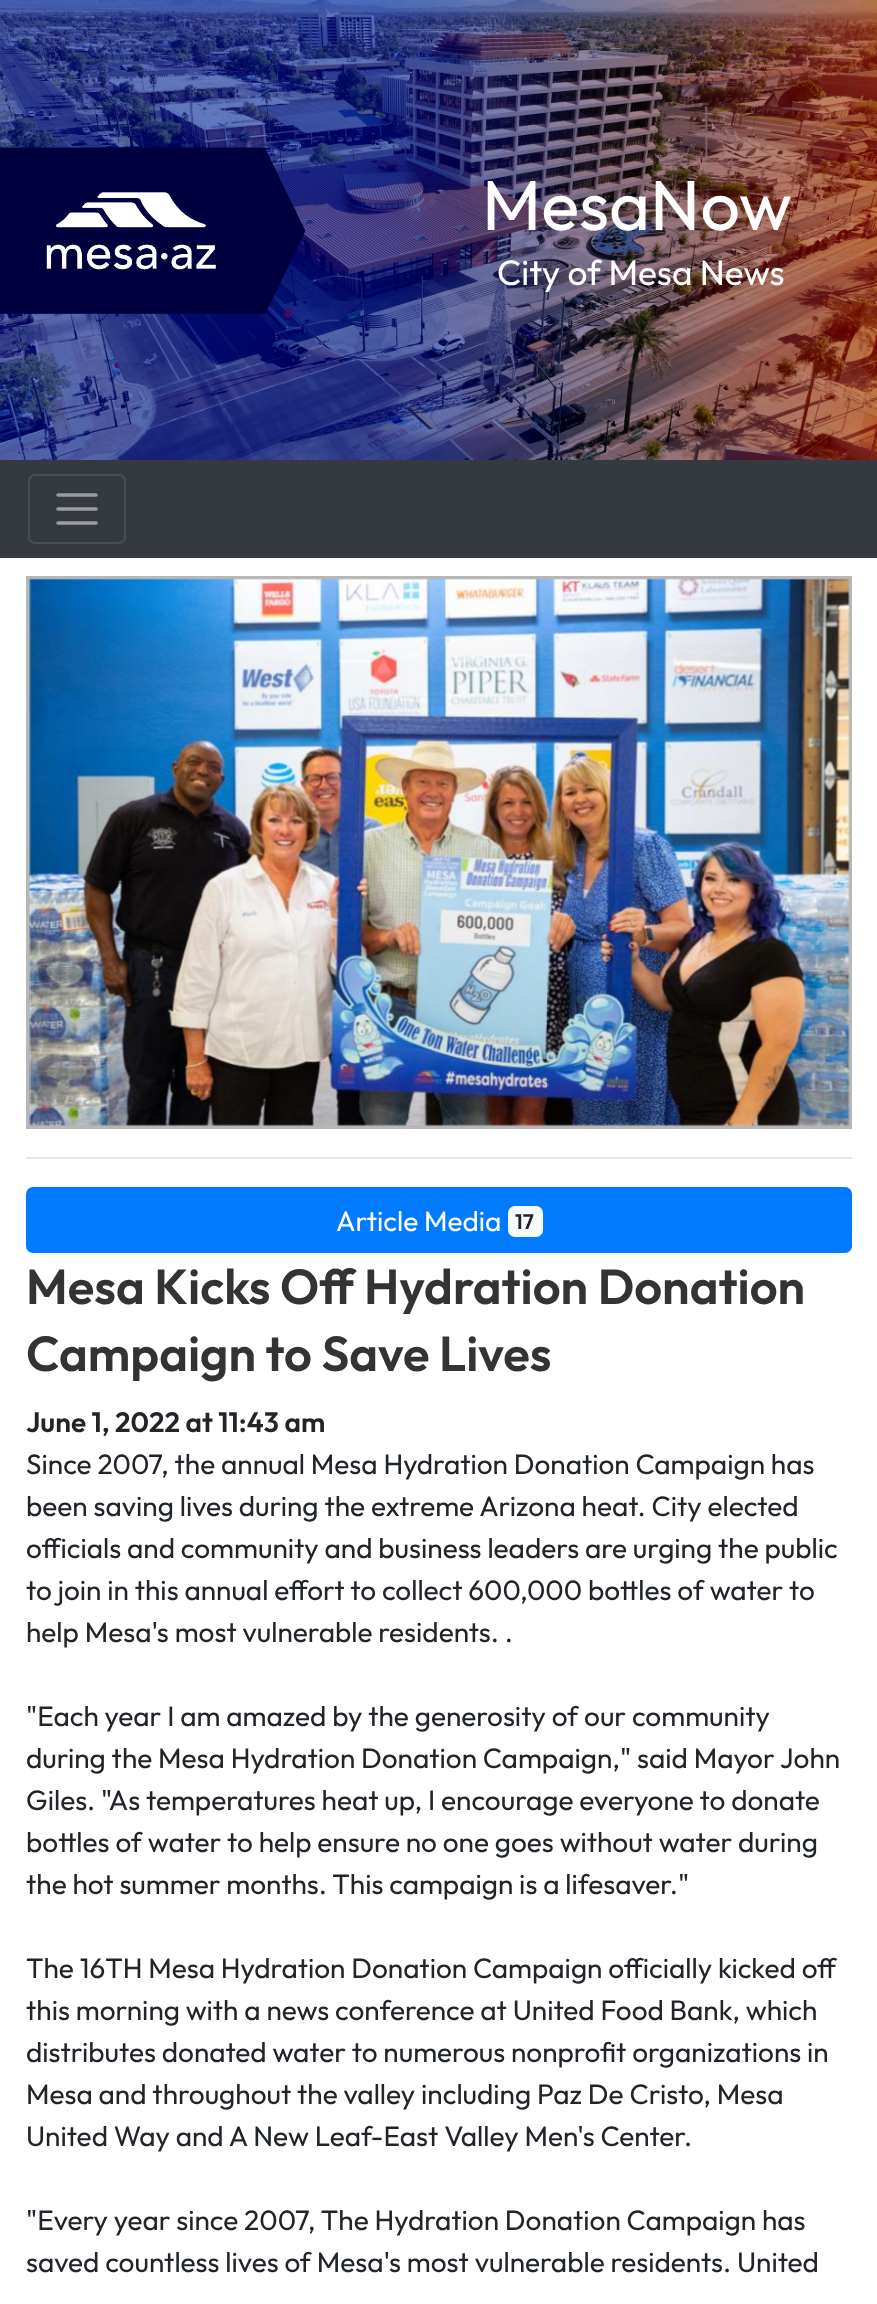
<!DOCTYPE html>
<meta charset="utf-8">
<style>body { margin: 0 } canvas { display: block }</style>
<canvas id="canvas" width="877" height="2304"></canvas>
<img id="img1" src="images/1.png" hidden>
<img id="img2" src="images/2.png" hidden>
<img id="img3" src="images/3.png" hidden>
<script>
window.onload = function () {
    const canvas = document.getElementById('canvas');
    const context = canvas.getContext('2d');
    context.miterLimit = 4;
    context.fontKerning = 'normal';

    context.fillStyle = 'rgb(255, 255, 255)';
    context.fillRect(0, 0, 877, 2304);
    context.drawImage(document.getElementById('img1'), 0, 0, 877, 460);
    context.drawImage(document.getElementById('img2'), 0, 147, 306, 167);
    context.fillStyle = 'rgb(52, 58, 64)';
    context.fillRect(0, 460, 877, 98);
    context.beginPath();
    context.roundRect(29, 475, 96, 68, 6);
    context.strokeStyle = 'rgb(72, 78, 83)';
    context.lineWidth = 2;
    context.stroke();
    context.beginPath();
    context.moveTo(58, 495);
    context.lineTo(96, 495);
    context.moveTo(58, 509);
    context.lineTo(96, 509);
    context.moveTo(58, 523);
    context.lineTo(96, 523);
    context.strokeStyle = 'rgb(154, 157, 160)';
    context.lineWidth = 3.5;
    context.lineCap = 'round';
    context.stroke();
    context.strokeStyle = 'rgb(183, 183, 183)';
    context.lineWidth = 4;
    context.strokeRect(28, 578, 822, 549);
    context.drawImage(document.getElementById('img3'), 29, 578, 821, 548);
    context.fillStyle = 'rgb(230, 230, 230)';
    context.fillRect(26, 1157, 826, 2);
    context.fillStyle = 'rgb(0, 123, 255)';
    context.beginPath();
    context.roundRect(27, 1188, 824, 64, 6);
    context.fill();
    context.strokeStyle = 'rgb(0, 123, 255)';
    context.lineWidth = 2;
    context.stroke();
    context.fillStyle = 'rgb(248, 249, 250)';
    context.beginPath();
    context.roundRect(508, 1206, 35, 31, 7);
    context.fill();
    context.font = '70.5px Outfit';
    context.fillStyle = 'rgb(255, 255, 255)';
    context.fillText('MesaNow', 482, 230);
    context.font = '35.25px Outfit';
    context.fillText('City of Mesa News', 497, 285);
    context.font = '28px Outfit';
    context.fillText('Article Media', 336, 1231);
    context.font = '600 21px Outfit';
    context.fillStyle = 'rgb(33, 37, 41)';
    context.fillText('17', 515, 1229);
    context.font = '600 49px Outfit';
    context.fillStyle = 'rgb(51, 51, 51)';
    context.fillText('Mesa Kicks Off Hydration Donation', 26, 1304);
    context.fillText('Campaign to Save Lives', 26, 1371);
    context.font = '600 28px Outfit';
    context.fillStyle = 'rgb(33, 37, 41)';
    context.fillText('June 1, 2022 at 11:43 am', 26, 1432);
    context.font = '28px Outfit';
    context.fillText('Since 2007, the annual Mesa Hydration Donation Campaign has', 26, 1474);
    context.fillText('been saving lives during the extreme Arizona heat. City elected', 26, 1516);
    context.fillText('officials and community and business leaders are urging the public', 26, 1558);
    context.fillText('to join in this annual effort to collect 600,000 bottles of water to', 26, 1600);
    context.fillText('help Mesa\'s most vulnerable residents. .', 26, 1642);
    context.fillText('"Each year I am amazed by the generosity of our community', 26, 1726);
    context.fillText('during the Mesa Hydration Donation Campaign," said Mayor John', 26, 1768);
    context.fillText('Giles. "As temperatures heat up, I encourage everyone to donate', 26, 1810);
    context.fillText('bottles of water to help ensure no one goes without water during', 26, 1852);
    context.fillText('the hot summer months. This campaign is a lifesaver."', 26, 1894);
    context.fillText('The 16TH Mesa Hydration Donation Campaign officially kicked off', 26, 1978);
    context.fillText('this morning with a news conference at United Food Bank, which', 26, 2020);
    context.fillText('distributes donated water to numerous nonprofit organizations in', 26, 2062);
    context.fillText('Mesa and throughout the valley including Paz De Cristo, Mesa', 26, 2104);
    context.fillText('United Way and A New Leaf-East Valley Men\'s Center.', 26, 2146);
    context.fillText('"Every year since 2007, The Hydration Donation Campaign has', 26, 2230);
    context.fillText('saved countless lives of Mesa\'s most vulnerable residents. United', 26, 2272);
};
</script>
